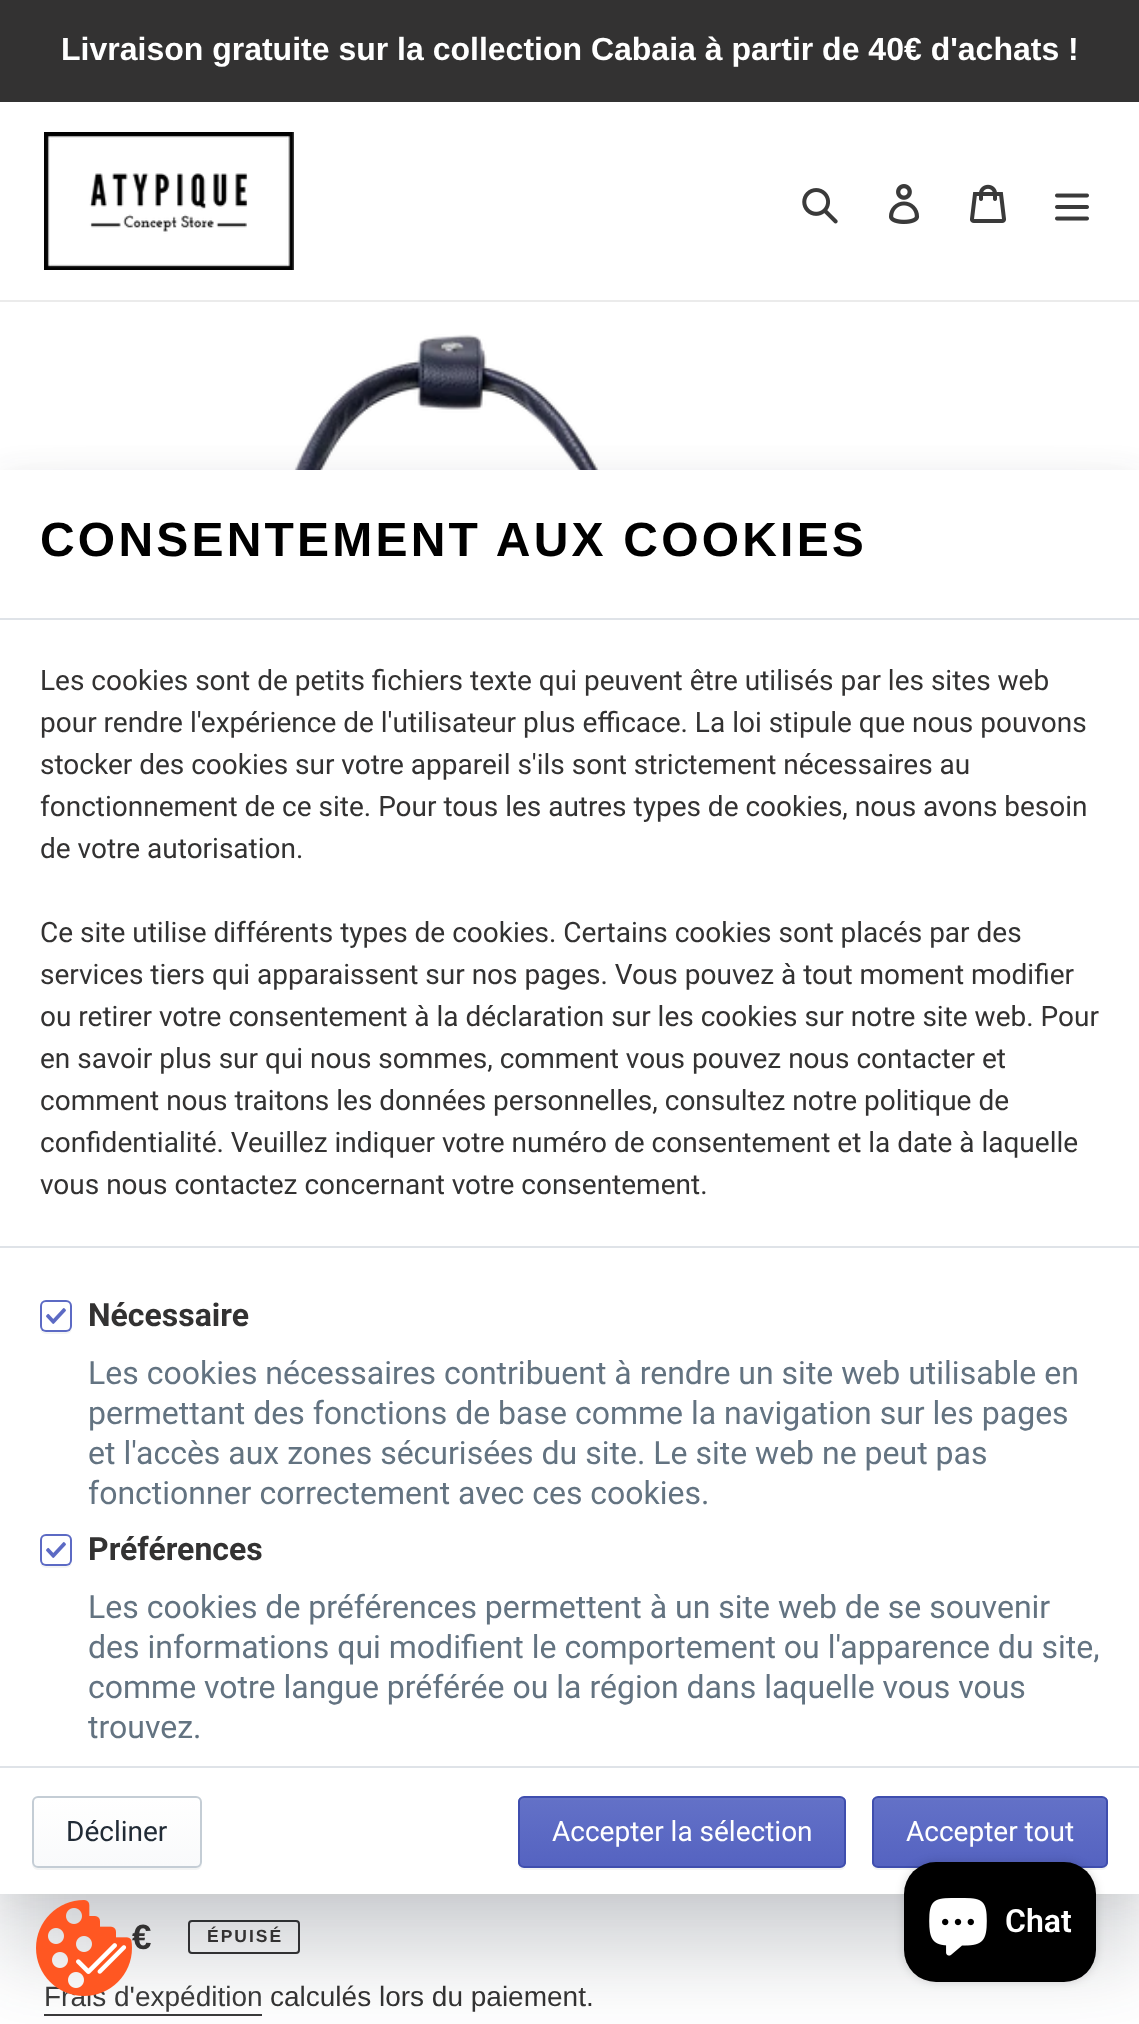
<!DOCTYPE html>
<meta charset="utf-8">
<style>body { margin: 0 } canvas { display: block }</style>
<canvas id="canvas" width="1139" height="2024"></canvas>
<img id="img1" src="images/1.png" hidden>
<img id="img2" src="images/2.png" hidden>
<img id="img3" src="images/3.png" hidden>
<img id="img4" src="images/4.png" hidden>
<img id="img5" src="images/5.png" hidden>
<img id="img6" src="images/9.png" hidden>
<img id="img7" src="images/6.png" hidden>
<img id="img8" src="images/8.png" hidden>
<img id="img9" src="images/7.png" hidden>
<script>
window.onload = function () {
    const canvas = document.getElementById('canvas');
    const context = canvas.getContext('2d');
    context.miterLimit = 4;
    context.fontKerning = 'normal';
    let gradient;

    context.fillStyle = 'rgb(255, 255, 255)';
    context.fillRect(0, 0, 1139, 2024);
    context.fillStyle = 'rgb(51, 50, 50)';
    context.fillRect(0, 0, 1139, 102);
    context.fillStyle = 'rgb(235, 235, 235)';
    context.fillRect(0, 300, 1139, 2);
    context.drawImage(document.getElementById('img1'), 44, 132, 250, 138);
    context.drawImage(document.getElementById('img2'), 802, 188, 36, 36);
    context.drawImage(document.getElementById('img3'), 889, 184, 31, 40);
    context.drawImage(document.getElementById('img4'), 970, 184, 36, 39);
    context.drawImage(document.getElementById('img5'), 1055, 193, 34, 28);
    context.drawImage(document.getElementById('img6'), 293, 334, 307, 136);
    context.beginPath();
    context.roundRect(189, 1921, 110, 32, 3);
    context.strokeStyle = 'rgb(51, 50, 50)';
    context.lineWidth = 2;
    context.stroke();
    context.fillStyle = 'rgba(32, 42, 54, 0.08)';
    context.filter = 'blur(16px)';
    context.beginPath();
    context.rect(0, 474, 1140, 1424);
    context.fill();
    context.filter = 'none';
    context.fillStyle = 'rgb(58, 58, 58)';
    context.fillRect(44, 2014, 218, 2);
    context.fillStyle = 'rgba(32, 42, 53, 0.2)';
    context.filter = 'blur(41px)';
    context.beginPath();
    context.rect(0, 532, 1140, 1424);
    context.fill();
    context.filter = 'none';
    context.fillStyle = 'rgb(255, 255, 255)';
    context.fillRect(0, 470, 1139, 1424);
    context.fillStyle = 'rgb(223, 227, 232)';
    context.fillRect(0, 618, 1139, 2);
    context.fillRect(0, 1246, 1139, 2);
    context.fillStyle = 'rgb(243, 244, 244)';
    context.beginPath();
    context.moveTo(40, 1326);
    context.bezierCurveTo(40, 1333, 42.5, 1334, 49.5, 1334);
    context.lineTo(62.5, 1334);
    context.bezierCurveTo(69.5, 1334, 72, 1333, 72, 1326);
    context.bezierCurveTo(72, 1329.5, 69.5, 1332, 66, 1332);
    context.lineTo(46, 1332);
    context.bezierCurveTo(42.5, 1332, 40, 1329.5, 40, 1326);
    context.closePath();
    context.fill();
    context.fillStyle = 'rgb(92, 106, 196)';
    context.beginPath();
    context.roundRect(40, 1300, 32, 32, 6);
    context.fill();
    context.fillStyle = 'rgb(255, 255, 255)';
    context.beginPath();
    context.roundRect(42, 1302, 28, 28, 4);
    context.fill();
    context.drawImage(document.getElementById('img7'), 46, 1308, 20, 16);
    context.fillStyle = 'rgb(243, 244, 244)';
    context.beginPath();
    context.moveTo(40, 1560);
    context.bezierCurveTo(40, 1567, 42.5, 1568, 49.5, 1568);
    context.lineTo(62.5, 1568);
    context.bezierCurveTo(69.5, 1568, 72, 1567, 72, 1560);
    context.bezierCurveTo(72, 1563.5, 69.5, 1566, 66, 1566);
    context.lineTo(46, 1566);
    context.bezierCurveTo(42.5, 1566, 40, 1563.5, 40, 1560);
    context.closePath();
    context.fill();
    context.fillStyle = 'rgb(92, 106, 196)';
    context.beginPath();
    context.roundRect(40, 1534, 32, 32, 6);
    context.fill();
    context.fillStyle = 'rgb(255, 255, 255)';
    context.beginPath();
    context.roundRect(42, 1536, 28, 28, 4);
    context.fill();
    context.drawImage(document.getElementById('img7'), 46, 1542, 20, 16);
    context.fillStyle = 'rgb(223, 227, 232)';
    context.fillRect(0, 1766, 1139, 2);
    context.fillStyle = 'rgb(243, 244, 244)';
    context.beginPath();
    context.moveTo(32, 1862);
    context.lineTo(32, 1864);
    context.bezierCurveTo(32, 1867, 35, 1870, 38, 1870);
    context.lineTo(196, 1870);
    context.bezierCurveTo(199, 1870, 202, 1867, 202, 1864);
    context.lineTo(202, 1862);
    context.bezierCurveTo(202, 1865, 199, 1868, 196, 1868);
    context.lineTo(38, 1868);
    context.bezierCurveTo(35, 1868, 32, 1865, 32, 1862);
    context.closePath();
    context.fill();
    context.save();
    context.beginPath();
    context.roundRect(32, 1796, 170, 72, 6);
    context.clip();
    gradient = context.createLinearGradient(117, 1798, 117, 1866);
    gradient.addColorStop(0, 'rgb(255, 255, 255)');
    gradient.addColorStop(1, 'rgb(249, 250, 251)');
    context.fillStyle = gradient;
    context.fillRect(32, 1798, 170, 68);
    context.restore();
    context.beginPath();
    context.roundRect(33, 1797, 168, 70, 5);
    context.strokeStyle = 'rgb(196, 205, 213)';
    context.stroke();
    context.beginPath();
    context.moveTo(518, 1862);
    context.bezierCurveTo(518, 1866, 519, 1870, 524, 1870);
    context.lineTo(840, 1870);
    context.bezierCurveTo(845, 1870, 846, 1866, 846, 1862);
    context.bezierCurveTo(846, 1865, 843, 1868, 840, 1868);
    context.lineTo(524, 1868);
    context.bezierCurveTo(521, 1868, 518, 1865, 518, 1862);
    context.closePath();
    context.fill();
    context.save();
    context.beginPath();
    context.roundRect(518, 1796, 328, 72, 6);
    context.clip();
    gradient = context.createLinearGradient(682, 1798, 682, 1866);
    gradient.addColorStop(0, 'rgb(99, 113, 199)');
    gradient.addColorStop(1, 'rgb(85, 99, 193)');
    context.fillStyle = gradient;
    context.fillRect(518, 1798, 328, 68);
    context.restore();
    context.fillStyle = 'rgb(103, 116, 200)';
    context.beginPath();
    context.moveTo(524, 1800);
    context.lineTo(840, 1800);
    context.bezierCurveTo(842, 1800, 844, 1802, 844, 1804);
    context.bezierCurveTo(844, 1801, 844, 1798, 840, 1798);
    context.lineTo(524, 1798);
    context.bezierCurveTo(520, 1798, 520, 1801, 520, 1804);
    context.bezierCurveTo(520, 1802, 522, 1800, 524, 1800);
    context.closePath();
    context.fill();
    context.beginPath();
    context.roundRect(519, 1797, 326, 70, 5);
    context.strokeStyle = 'rgb(63, 78, 174)';
    context.stroke();
    context.fillStyle = 'rgb(243, 244, 244)';
    context.beginPath();
    context.moveTo(872, 1862);
    context.lineTo(872, 1864);
    context.bezierCurveTo(872, 1867, 875, 1870, 878, 1870);
    context.lineTo(1102, 1870);
    context.bezierCurveTo(1105, 1870, 1108, 1867, 1108, 1864);
    context.lineTo(1108, 1862);
    context.bezierCurveTo(1108, 1865, 1105, 1868, 1102, 1868);
    context.lineTo(878, 1868);
    context.bezierCurveTo(875, 1868, 872, 1865, 872, 1862);
    context.closePath();
    context.fill();
    context.save();
    context.beginPath();
    context.roundRect(872, 1796, 236, 72, 6);
    context.clip();
    gradient = context.createLinearGradient(990, 1798, 990, 1866);
    gradient.addColorStop(0, 'rgb(99, 113, 199)');
    gradient.addColorStop(1, 'rgb(85, 99, 193)');
    context.fillStyle = gradient;
    context.fillRect(872, 1798, 236, 68);
    context.restore();
    context.fillStyle = 'rgb(103, 116, 200)';
    context.beginPath();
    context.moveTo(878, 1800);
    context.lineTo(1102, 1800);
    context.bezierCurveTo(1104, 1800, 1106, 1802, 1106, 1804);
    context.bezierCurveTo(1106, 1801, 1106, 1798, 1102, 1798);
    context.lineTo(878, 1798);
    context.bezierCurveTo(874, 1798, 874, 1801, 874, 1804);
    context.bezierCurveTo(874, 1802, 876, 1800, 878, 1800);
    context.closePath();
    context.fill();
    context.beginPath();
    context.roundRect(873, 1797, 234, 70, 5);
    context.stroke();
    context.fillStyle = 'rgba(0, 0, 0, 0.15)';
    context.filter = 'blur(5px)';
    context.beginPath();
    context.roundRect(904, 1862, 192, 120, 32);
    context.fill();
    context.filter = 'none';
    context.fillStyle = 'rgb(0, 0, 0)';
    context.beginPath();
    context.roundRect(904, 1862, 192, 120, 32);
    context.fill();
    context.drawImage(document.getElementById('img8'), 929, 1898, 58, 58);
    context.font = 'bold 32px Liberation Sans';
    context.fillStyle = 'rgb(255, 255, 255)';
    context.fillText('Livraison gratuite sur la collection Cabaia à partir de 40€ d\'achats !', 61, 60);
    context.letterSpacing = '3.2px';
    context.font = 'bold 48px Liberation Sans';
    context.fillStyle = 'rgb(0, 0, 0)';
    context.fillText('CONSENTEMENT AUX COOKIES', 40, 556);
    context.letterSpacing = '0px';
    context.font = '28px Roboto';
    context.fillStyle = 'rgb(51, 50, 50)';
    context.fillText('Les cookies sont de petits fichiers texte qui peuvent être utilisés par les sites web', 40, 690);
    context.fillText('pour rendre l\'expérience de l\'utilisateur plus efficace. La loi stipule que nous pouvons', 40, 732);
    context.fillText('stocker des cookies sur votre appareil s\'ils sont strictement nécessaires au', 40, 774);
    context.fillText('fonctionnement de ce site. Pour tous les autres types de cookies, nous avons besoin', 40, 816);
    context.fillText('de votre autorisation.', 40, 858);
    context.fillText('Ce site utilise différents types de cookies. Certains cookies sont placés par des', 40, 942);
    context.fillText('services tiers qui apparaissent sur nos pages. Vous pouvez à tout moment modifier', 40, 984);
    context.fillText('ou retirer votre consentement à la déclaration sur les cookies sur notre site web. Pour', 40, 1026);
    context.fillText('en savoir plus sur qui nous sommes, comment vous pouvez nous contacter et', 40, 1068);
    context.fillText('comment nous traitons les données personnelles, consultez notre politique de', 40, 1110);
    context.fillText('confidentialité. Veuillez indiquer votre numéro de consentement et la date à laquelle', 40, 1152);
    context.fillText('vous nous contactez concernant votre consentement.', 40, 1194);
    context.font = 'bold 32px Roboto';
    context.fillText('Nécessaire', 88, 1326);
    context.font = '32px Roboto';
    context.fillStyle = 'rgb(99, 115, 129)';
    context.fillText('Les cookies nécessaires contribuent à rendre un site web utilisable en', 88, 1384);
    context.fillText('permettant des fonctions de base comme la navigation sur les pages', 88, 1424);
    context.fillText('et l\'accès aux zones sécurisées du site. Le site web ne peut pas', 88, 1464);
    context.fillText('fonctionner correctement avec ces cookies.', 88, 1504);
    context.font = 'bold 32px Roboto';
    context.fillStyle = 'rgb(51, 50, 50)';
    context.fillText('Préférences', 88, 1560);
    context.font = '32px Roboto';
    context.fillStyle = 'rgb(99, 115, 129)';
    context.fillText('Les cookies de préférences permettent à un site web de se souvenir', 88, 1618);
    context.fillText('des informations qui modifient le comportement ou l\'apparence du site,', 88, 1658);
    context.fillText('comme votre langue préférée ou la région dans laquelle vous vous', 88, 1698);
    context.fillText('trouvez.', 88, 1738);
    context.font = '28px Roboto';
    context.fillStyle = 'rgb(33, 43, 54)';
    context.fillText('Décliner', 66, 1841);
    context.fillStyle = 'rgb(255, 255, 255)';
    context.fillText('Accepter la sélection', 552, 1841);
    context.fillText('Accepter tout', 906, 1841);
    context.font = '600 32px Roboto';
    context.fillText('Chat', 1005, 1932);
    context.font = 'bold 35px Liberation Sans';
    context.fillStyle = 'rgb(51, 50, 50)';
    context.fillText('€', 132, 1949);
    context.letterSpacing = '2px';
    context.font = 'bold 17.5px Liberation Sans';
    context.fillText('ÉPUISÉ', 207, 1942);
    context.letterSpacing = '0px';
    context.font = '28px Liberation Sans';
    context.fillStyle = 'rgb(58, 58, 58)';
    context.fillText('Frais d\'expédition', 44, 2006);
    context.drawImage(document.getElementById('img9'), 36, 1900, 96, 96);
    context.fillStyle = 'rgb(51, 50, 50)';
    context.fillText('calculés lors du paiement.', 270, 2006);
};
</script>
